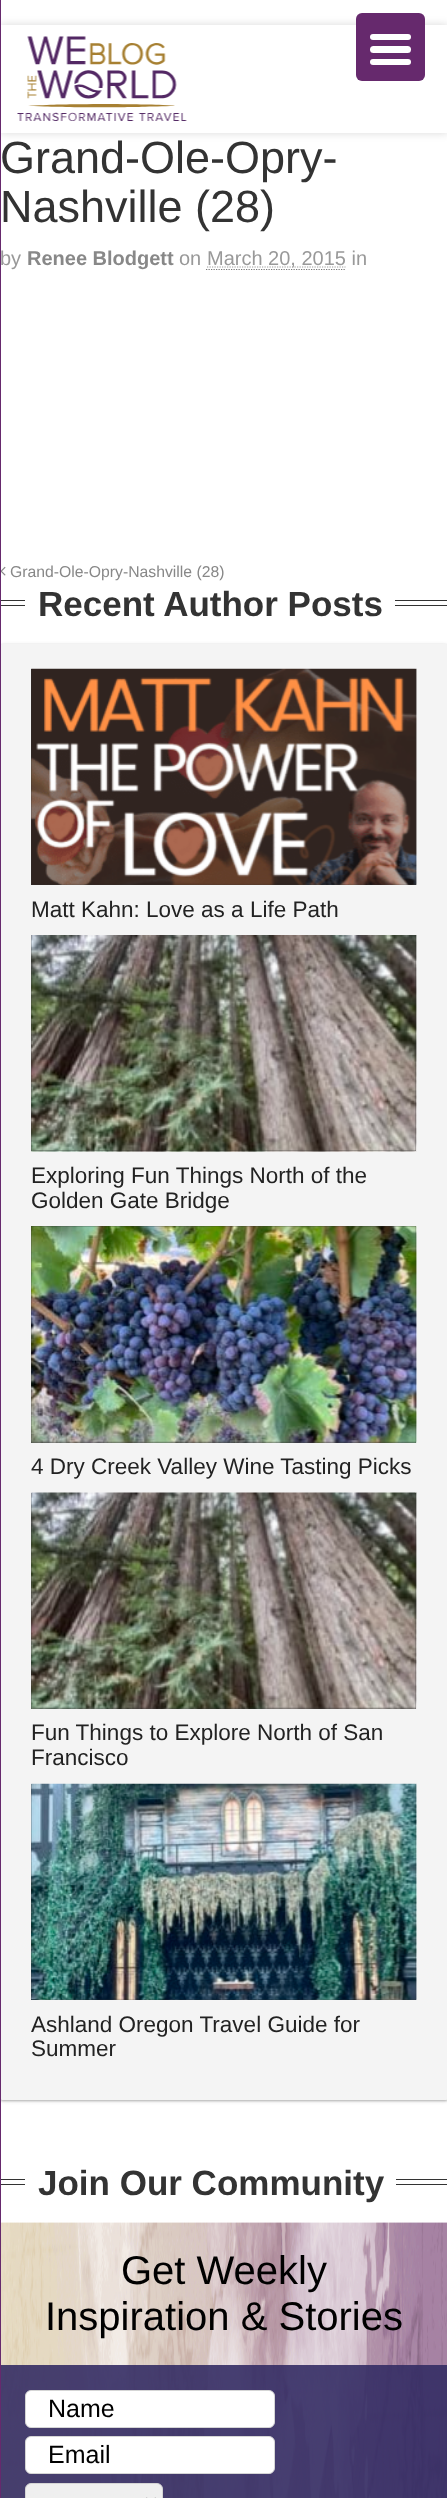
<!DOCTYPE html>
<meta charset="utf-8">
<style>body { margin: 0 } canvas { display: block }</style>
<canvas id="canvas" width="447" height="2498"></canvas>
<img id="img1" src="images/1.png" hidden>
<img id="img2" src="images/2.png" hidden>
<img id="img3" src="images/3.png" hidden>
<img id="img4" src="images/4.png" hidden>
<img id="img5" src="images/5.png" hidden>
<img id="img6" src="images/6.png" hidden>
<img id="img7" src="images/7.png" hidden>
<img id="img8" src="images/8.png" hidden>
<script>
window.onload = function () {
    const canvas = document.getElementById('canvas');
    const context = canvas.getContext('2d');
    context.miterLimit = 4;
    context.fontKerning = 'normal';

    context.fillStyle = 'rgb(255, 255, 255)';
    context.fillRect(0, 0, 447, 2498);
    context.fillStyle = 'rgba(0, 0, 0, 0.15)';
    context.filter = 'blur(4px)';
    context.beginPath();
    context.rect(0, 25, 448, 108);
    context.fill();
    context.filter = 'none';
    context.fillStyle = 'rgb(51, 51, 51)';
    context.fillRect(0, 600, 25, 1);
    context.fillRect(0, 605, 25, 1);
    context.fillStyle = 'rgba(0, 0, 0, 0.24)';
    context.filter = 'blur(1px)';
    context.beginPath();
    context.roundRect(0, 645, 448, 1456, 2.5);
    context.fill();
    context.filter = 'none';
    context.fillStyle = 'rgba(0, 0, 0, 0.12)';
    context.filter = 'blur(2px)';
    context.beginPath();
    context.roundRect(0, 645, 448, 1456, 2.5);
    context.fill();
    context.filter = 'none';
    context.fillStyle = 'rgb(244, 244, 244)';
    context.beginPath();
    context.roundRect(0, 644, 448, 1456, 2.5);
    context.fill();
    context.fillStyle = 'rgb(51, 51, 51)';
    context.fillRect(0, 2179, 25, 1);
    context.fillRect(0, 2184, 25, 1);
    context.fillStyle = 'rgb(102, 41, 109)';
    context.fillRect(0, 0, 1, 2498);
    context.fillStyle = 'rgb(255, 255, 255)';
    context.fillRect(1, 25, 446, 108);
    context.fillStyle = 'rgb(102, 41, 109)';
    context.beginPath();
    context.roundRect(356, 13, 69, 68, 6);
    context.fill();
    context.fillStyle = 'rgb(255, 255, 255)';
    context.beginPath();
    context.roundRect(370, 46, 41, 7, 3.5);
    context.fill();
    context.beginPath();
    context.roundRect(370, 34, 41, 6, 3);
    context.fill();
    context.beginPath();
    context.roundRect(370, 59, 41, 6, 3);
    context.fill();
    context.drawImage(document.getElementById('img1'), 17, 36, 170, 85);
    context.beginPath();
    context.moveTo(206, 269.5);
    context.lineTo(346, 269.5);
    context.strokeStyle = 'rgb(119, 119, 119)';
    context.lineWidth = 1.2;
    context.setLineDash([1.25, 1.25]);
    context.stroke();
    context.beginPath();
    context.moveTo(207, 267);
    context.lineTo(345.5, 267);
    context.strokeStyle = 'rgb(153, 153, 153)';
    context.stroke();
    context.drawImage(document.getElementById('img2'), 1, 566, 5, 10);
    context.fillStyle = 'rgb(51, 51, 51)';
    context.fillRect(395, 600, 52, 1);
    context.fillRect(395, 605, 52, 1);
    context.fillRect(31, 669, 385, 216);
    context.drawImage(document.getElementById('img3'), 31, 668, 386, 217);
    context.fillRect(31, 935, 385, 216);
    context.drawImage(document.getElementById('img4'), 31, 935, 386, 217);
    context.fillRect(31, 1226, 385, 217);
    context.drawImage(document.getElementById('img5'), 31, 1226, 386, 217);
    context.fillRect(31, 1493, 385, 216);
    context.drawImage(document.getElementById('img6'), 31, 1492, 386, 217);
    context.fillRect(31, 1784, 385, 216);
    context.drawImage(document.getElementById('img7'), 31, 1783, 386, 217);
    context.fillRect(396, 2179, 51, 1);
    context.fillRect(396, 2184, 51, 1);
    context.drawImage(document.getElementById('img8'), 1, 2222, 446, 276);
    context.fillStyle = 'rgba(52, 44, 100, 0.9)';
    context.fillRect(1, 2365, 446, 133);
    context.fillStyle = 'rgb(255, 255, 255)';
    context.beginPath();
    context.roundRect(25.5, 2390.5, 249, 37, 5.5);
    context.fill();
    context.strokeStyle = 'rgb(213, 213, 213)';
    context.lineWidth = 1;
    context.setLineDash([]);
    context.stroke();
    context.beginPath();
    context.roundRect(25.5, 2436.5, 249, 37, 5.5);
    context.fill();
    context.stroke();
    context.fillStyle = 'rgb(239, 239, 239)';
    context.beginPath();
    context.roundRect(25.5, 2483.5, 137, 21, 5.5);
    context.fill();
    context.stroke();
    context.beginPath();
    context.moveTo(146, 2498.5);
    context.lineTo(151, 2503.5);
    context.lineTo(156, 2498.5);
    context.strokeStyle = 'rgb(51, 51, 51)';
    context.lineWidth = 2.5;
    context.stroke();
    context.font = '45px Liberation Sans';
    context.fillStyle = 'rgb(51, 51, 51)';
    context.fillText('Grand-Ole-Opry-', 0, 173);
    context.fillText('Nashville (28)', 0, 222);
    context.font = '20px Liberation Sans';
    context.fillStyle = 'rgb(153, 153, 153)';
    context.fillText('by', 0, 265);
    context.font = 'bold 20px Liberation Sans';
    context.fillStyle = 'rgb(136, 136, 136)';
    context.fillText('Renee Blodgett', 27, 265);
    context.font = '20px Liberation Sans';
    context.fillStyle = 'rgb(153, 153, 153)';
    context.fillText('on', 179, 265);
    context.fillText('March 20, 2015 in', 207, 265);
    context.font = '15.75px Liberation Sans';
    context.fillStyle = 'rgb(136, 136, 136)';
    context.fillText('Grand-Ole-Opry-Nashville (28)', 10, 577);
    context.font = 'bold 35px Liberation Sans';
    context.fillStyle = 'rgb(51, 51, 51)';
    context.fillText('Recent Author Posts', 38, 616);
    context.font = '22.5px Liberation Sans';
    context.fillStyle = 'rgb(34, 34, 34)';
    context.fillText('Matt Kahn: Love as a Life Path', 31, 917);
    context.fillText('Exploring Fun Things North of the', 31, 1183);
    context.fillText('Golden Gate Bridge', 31, 1208);
    context.fillText('4 Dry Creek Valley Wine Tasting Picks', 31, 1474);
    context.fillText('Fun Things to Explore North of San', 31, 1740);
    context.fillText('Francisco', 31, 1765);
    context.fillText('Ashland Oregon Travel Guide for', 31, 2032);
    context.fillText('Summer', 31, 2056);
    context.font = 'bold 35px Liberation Sans';
    context.fillStyle = 'rgb(51, 51, 51)';
    context.fillText('Join Our Community', 38, 2195);
    context.font = '40px Liberation Sans';
    context.fillStyle = 'rgb(0, 0, 0)';
    context.fillText('Get Weekly', 121, 2284);
    context.fillText('Inspiration & Stories', 45, 2330);
    context.font = '25px Liberation Sans';
    context.fillText('Name', 48, 2417);
    context.fillText('Email', 48, 2463);
};
</script>
